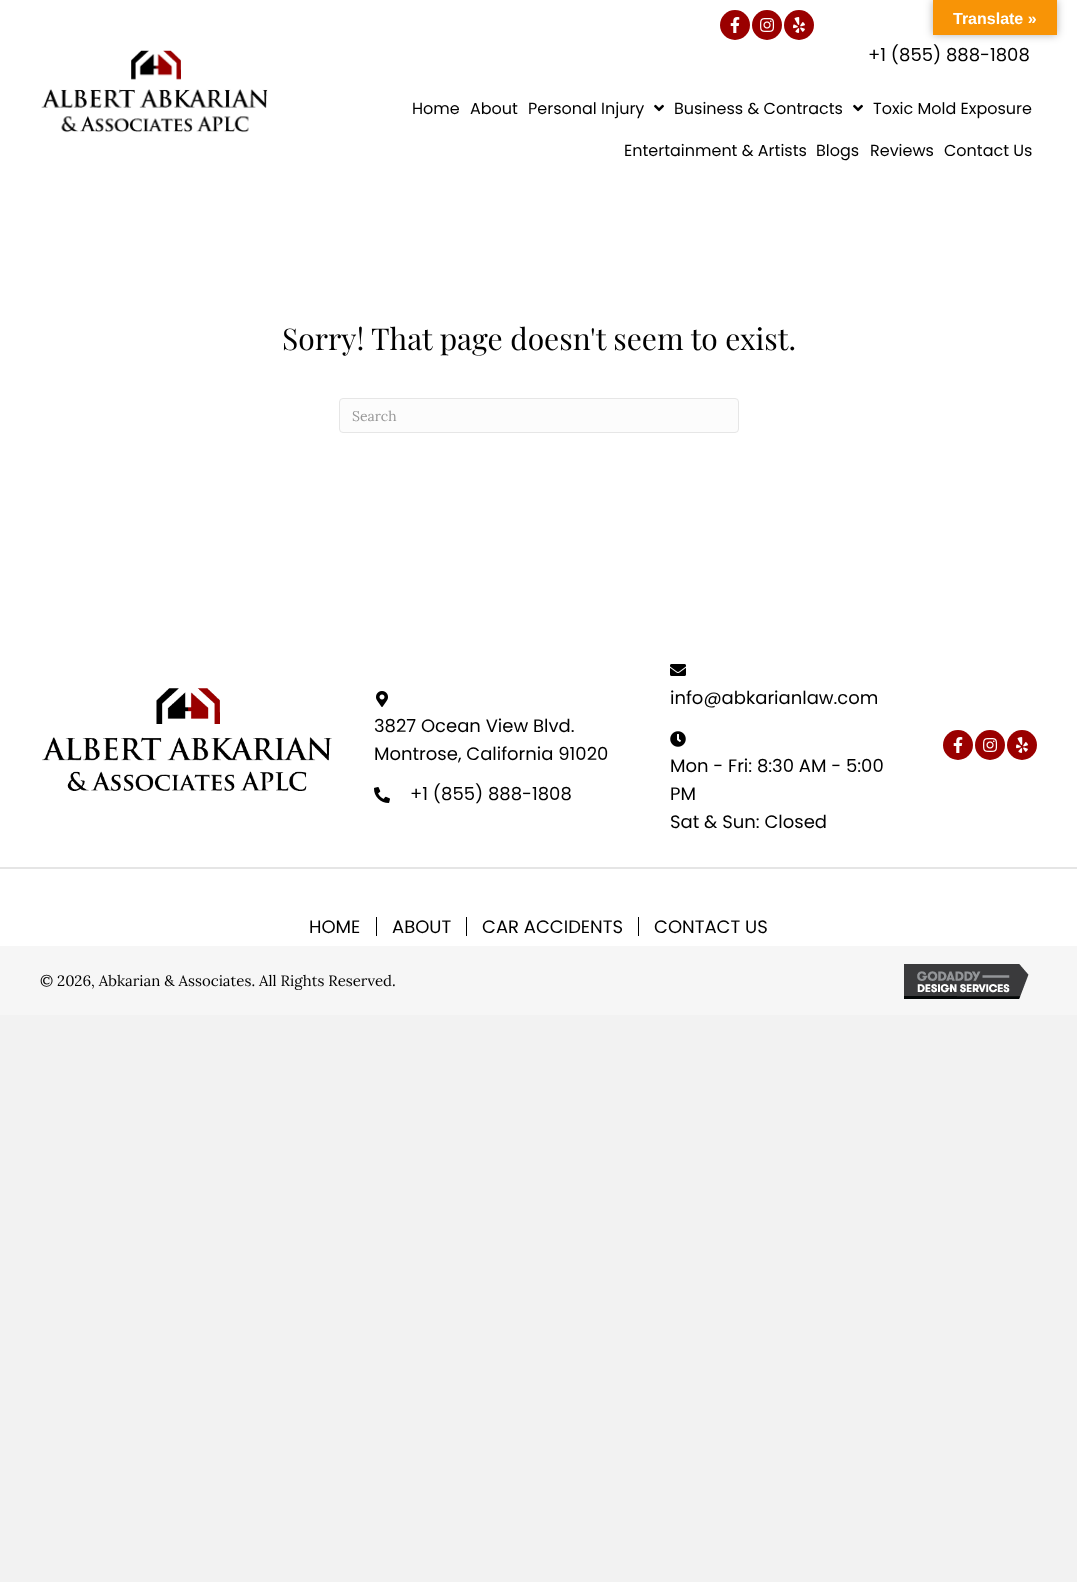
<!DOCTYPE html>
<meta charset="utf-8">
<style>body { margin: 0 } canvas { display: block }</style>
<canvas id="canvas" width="1077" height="1582"></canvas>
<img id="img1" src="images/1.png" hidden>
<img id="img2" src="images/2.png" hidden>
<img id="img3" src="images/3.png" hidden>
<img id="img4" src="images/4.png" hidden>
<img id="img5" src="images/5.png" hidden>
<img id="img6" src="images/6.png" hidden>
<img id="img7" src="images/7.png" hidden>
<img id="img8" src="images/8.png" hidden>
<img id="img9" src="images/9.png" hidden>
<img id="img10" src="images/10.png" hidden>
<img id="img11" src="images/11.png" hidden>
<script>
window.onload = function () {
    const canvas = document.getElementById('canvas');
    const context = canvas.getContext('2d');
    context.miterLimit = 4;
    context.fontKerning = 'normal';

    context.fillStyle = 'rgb(242, 242, 242)';
    context.fillRect(0, 0, 1077, 1582);
    context.fillStyle = 'rgb(255, 255, 255)';
    context.fillRect(0, 0, 1077, 867);
    context.fillStyle = 'rgba(0, 0, 0, 0.3)';
    context.filter = 'blur(4.5px)';
    context.beginPath();
    context.rect(933, 0, 124, 35);
    context.fill();
    context.filter = 'none';
    context.fillStyle = 'rgb(248, 148, 6)';
    context.fillRect(933, 0, 124, 35);
    context.drawImage(document.getElementById('img1'), 41, 50, 227, 83);
    context.fillStyle = 'rgb(154, 0, 0)';
    context.beginPath();
    context.arc(735, 25, 15, 0, 2 * Math.PI);
    context.fill();
    context.drawImage(document.getElementById('img2'), 730, 17, 10, 16);
    context.beginPath();
    context.arc(767, 25, 15, 0, 2 * Math.PI);
    context.fill();
    context.drawImage(document.getElementById('img3'), 760, 18, 15, 14);
    context.beginPath();
    context.arc(799, 25, 15, 0, 2 * Math.PI);
    context.fill();
    context.drawImage(document.getElementById('img4'), 793, 17, 12, 16);
    context.drawImage(document.getElementById('img5'), 654, 104, 10, 8);
    context.drawImage(document.getElementById('img5'), 853, 104, 10, 8);
    context.fillStyle = 'rgb(252, 252, 252)';
    context.beginPath();
    context.roundRect(339.5, 398.5, 399, 34, 3.5);
    context.fill();
    context.strokeStyle = 'rgb(230, 230, 230)';
    context.stroke();
    context.fillStyle = 'rgb(229, 229, 229)';
    context.fillRect(0, 867, 1077, 2);
    context.drawImage(document.getElementById('img6'), 42, 688, 290, 103);
    context.drawImage(document.getElementById('img7'), 376, 691, 12, 16);
    context.drawImage(document.getElementById('img8'), 374, 787, 16, 16);
    context.drawImage(document.getElementById('img9'), 670, 664, 16, 12);
    context.drawImage(document.getElementById('img10'), 670, 731, 16, 16);
    context.fillStyle = 'rgb(154, 0, 0)';
    context.beginPath();
    context.arc(958, 745, 15, 0, 2 * Math.PI);
    context.fill();
    context.drawImage(document.getElementById('img2'), 953, 737, 10, 16);
    context.beginPath();
    context.arc(990, 745, 15, 0, 2 * Math.PI);
    context.fill();
    context.drawImage(document.getElementById('img3'), 983, 738, 15, 14);
    context.beginPath();
    context.arc(1022, 745, 15, 0, 2 * Math.PI);
    context.fill();
    context.drawImage(document.getElementById('img4'), 1016, 737, 12, 16);
    context.fillStyle = 'rgb(255, 255, 255)';
    context.fillRect(0, 869, 1077, 77);
    context.fillStyle = 'rgb(0, 0, 0)';
    context.fillRect(376, 917, 1, 19);
    context.fillRect(466, 917, 1, 19);
    context.fillRect(638, 917, 1, 19);
    context.fillStyle = 'rgb(246, 246, 246)';
    context.fillRect(0, 946, 1077, 69);
    context.drawImage(document.getElementById('img11'), 904, 964, 125, 35);
    context.font = 'bold 16px Liberation Sans';
    context.fillStyle = 'rgb(255, 255, 255)';
    context.fillText('Translate »', 953, 24);
    context.font = '18px Poppins';
    context.fillStyle = 'rgb(0, 0, 0)';
    context.fillText('+1 (855) 888-1808', 868, 61);
    context.font = '16px Poppins';
    context.fillText('Home', 412, 114);
    context.fillText('About', 470, 114);
    context.fillText('Personal Injury', 528, 114);
    context.fillText('Business & Contracts', 674, 114);
    context.fillText('Toxic Mold Exposure', 873, 114);
    context.fillText('Entertainment & Artists', 624, 156);
    context.fillText('Blogs', 816, 156);
    context.fillText('Reviews', 870, 156);
    context.fillText('Contact Us', 944, 156);
    context.font = '30px Playfair Display';
    context.fillText('Sorry! That page doesn\'t seem to exist.', 282, 350);
    context.font = '14px Lora';
    context.fillStyle = 'rgb(151, 151, 151)';
    context.fillText('Search', 352, 421);
    context.font = '18px Poppins';
    context.fillStyle = 'rgb(0, 0, 0)';
    context.fillText('3827 Ocean View Blvd.', 374, 732);
    context.fillText('Montrose, California 91020', 374, 760);
    context.fillText('+1 (855) 888-1808', 410, 800);
    context.fillText('info@abkarianlaw.com', 670, 704);
    context.fillText('Mon - Fri: 8:30 AM - 5:00', 670, 772);
    context.fillText('PM', 670, 800);
    context.fillText('Sat & Sun: Closed', 670, 828);
    context.fillText('HOME', 309, 933);
    context.fillText('ABOUT', 392, 933);
    context.fillText('CAR ACCIDENTS', 482, 933);
    context.fillText('CONTACT US', 654, 933);
    context.font = '15px Lora';
    context.fillText('© 2026, Abkarian & Associates. All Rights Reserved.', 40, 986);
};
</script>
